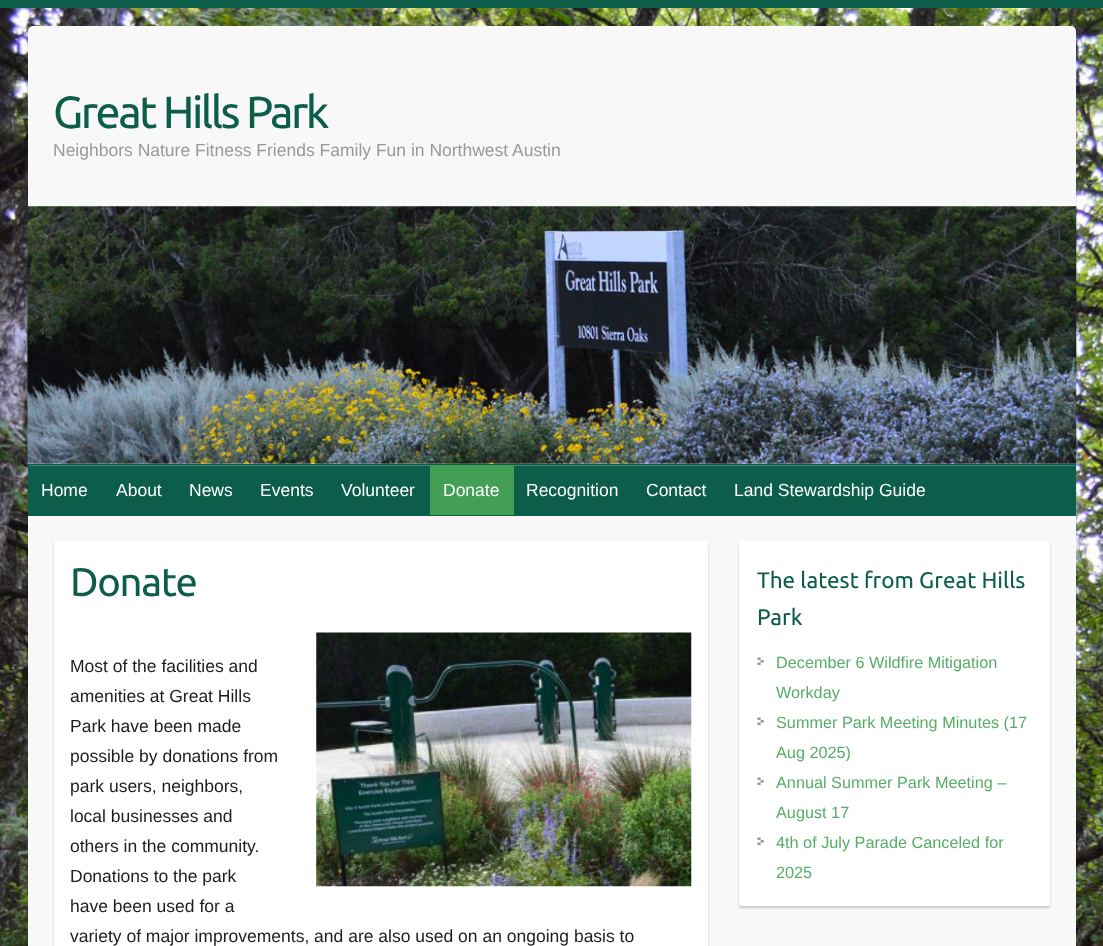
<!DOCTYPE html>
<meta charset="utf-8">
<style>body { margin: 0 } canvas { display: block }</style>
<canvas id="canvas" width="1103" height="946"></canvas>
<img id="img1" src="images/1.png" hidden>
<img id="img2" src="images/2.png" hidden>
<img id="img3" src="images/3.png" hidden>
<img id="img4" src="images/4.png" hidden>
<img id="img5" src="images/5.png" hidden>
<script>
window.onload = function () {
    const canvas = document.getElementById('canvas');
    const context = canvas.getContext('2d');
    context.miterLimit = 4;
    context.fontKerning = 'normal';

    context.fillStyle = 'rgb(255, 255, 255)';
    context.fillRect(0, 0, 1103, 946);
    context.drawImage(document.getElementById('img1'), 0, 8, 1103, 938);
    context.fillStyle = 'rgb(12, 94, 75)';
    context.fillRect(0, 0, 1103, 8);
    context.fillStyle = 'rgba(0, 0, 0, 0.2)';
    context.filter = 'blur(1px)';
    context.beginPath();
    context.roundRect(28, 28, 1048, 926, 5);
    context.fill();
    context.filter = 'none';
    context.fillStyle = 'rgb(248, 248, 248)';
    context.beginPath();
    context.roundRect(28, 26, 1048, 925, 5);
    context.fill();
    context.drawImage(document.getElementById('img2'), 27, 206, 1050, 258);
    context.fillStyle = 'rgb(12, 94, 75)';
    context.fillRect(28, 464, 1048, 52);
    context.fillStyle = 'rgb(61, 126, 111)';
    context.fillRect(29, 465, 1046, 1);
    context.fillStyle = 'rgb(67, 159, 85)';
    context.fillRect(430, 465, 84, 50);
    context.fillStyle = 'rgba(0, 0, 0, 0.2)';
    context.filter = 'blur(1px)';
    context.beginPath();
    context.rect(54, 543, 654, 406);
    context.fill();
    context.filter = 'none';
    context.fillStyle = 'rgb(255, 255, 255)';
    context.fillRect(54, 541, 654, 405);
    context.drawImage(document.getElementById('img3'), 316, 632, 376, 255);
    context.fillStyle = 'rgba(0, 0, 0, 0.2)';
    context.filter = 'blur(1px)';
    context.beginPath();
    context.roundRect(739, 543, 311, 365, 2.5);
    context.fill();
    context.filter = 'none';
    context.fillStyle = 'rgb(255, 255, 255)';
    context.beginPath();
    context.roundRect(739, 541, 311, 365, 2.5);
    context.fill();
    context.drawImage(document.getElementById('img4'), 757, 657, 7, 8);
    context.drawImage(document.getElementById('img4'), 757, 717, 7, 8);
    context.drawImage(document.getElementById('img5'), 757, 777, 7, 8);
    context.drawImage(document.getElementById('img4'), 757, 837, 7, 8);
    context.letterSpacing = '-2.5px';
    context.font = '45px Ubuntu';
    context.fillStyle = 'rgb(12, 94, 75)';
    context.fillText('Great Hills Park', 53, 128);
    context.letterSpacing = '0px';
    context.font = '17.5px Liberation Sans';
    context.fillStyle = 'rgb(153, 153, 153)';
    context.fillText('Neighbors Nature Fitness Friends Family Fun in Northwest Austin', 53, 156);
    context.fillStyle = 'rgb(255, 255, 255)';
    context.fillText('Home', 41, 496);
    context.fillText('About', 116, 496);
    context.fillText('News', 189, 496);
    context.fillText('Events', 260, 496);
    context.fillText('Volunteer', 341, 496);
    context.fillText('Donate', 443, 496);
    context.fillText('Recognition', 526, 496);
    context.fillText('Contact', 646, 496);
    context.fillText('Land Stewardship Guide', 734, 496);
    context.letterSpacing = '-1.25px';
    context.font = '40px Ubuntu';
    context.fillStyle = 'rgb(12, 94, 75)';
    context.fillText('Donate', 70, 596);
    context.letterSpacing = '0px';
    context.font = '17.5px Liberation Sans';
    context.fillStyle = 'rgb(29, 29, 29)';
    context.fillText('Most of the facilities and', 70, 672);
    context.fillText('amenities at Great Hills', 70, 702);
    context.fillText('Park have been made', 70, 732);
    context.fillText('possible by donations from', 70, 762);
    context.fillText('park users, neighbors,', 70, 792);
    context.fillText('local businesses and', 70, 822);
    context.fillText('others in the community.', 70, 852);
    context.fillText('Donations to the park', 70, 882);
    context.fillText('have been used for a', 70, 912);
    context.fillText('variety of major improvements, and are also used on an ongoing basis to', 70, 942);
    context.font = '22.5px Ubuntu';
    context.fillStyle = 'rgb(12, 94, 75)';
    context.fillText('The latest from Great Hills', 757, 588);
    context.fillText('Park', 757, 625);
    context.font = '16.25px Liberation Sans';
    context.fillStyle = 'rgb(87, 173, 104)';
    context.fillText('December 6 Wildfire Mitigation', 776, 668);
    context.fillText('Workday', 776, 698);
    context.fillText('Summer Park Meeting Minutes (17', 776, 728);
    context.fillText('Aug 2025)', 776, 758);
    context.fillText('Annual Summer Park Meeting –', 776, 788);
    context.fillText('August 17', 776, 818);
    context.fillText('4th of July Parade Canceled for', 776, 848);
    context.fillText('2025', 776, 878);
};
</script>
